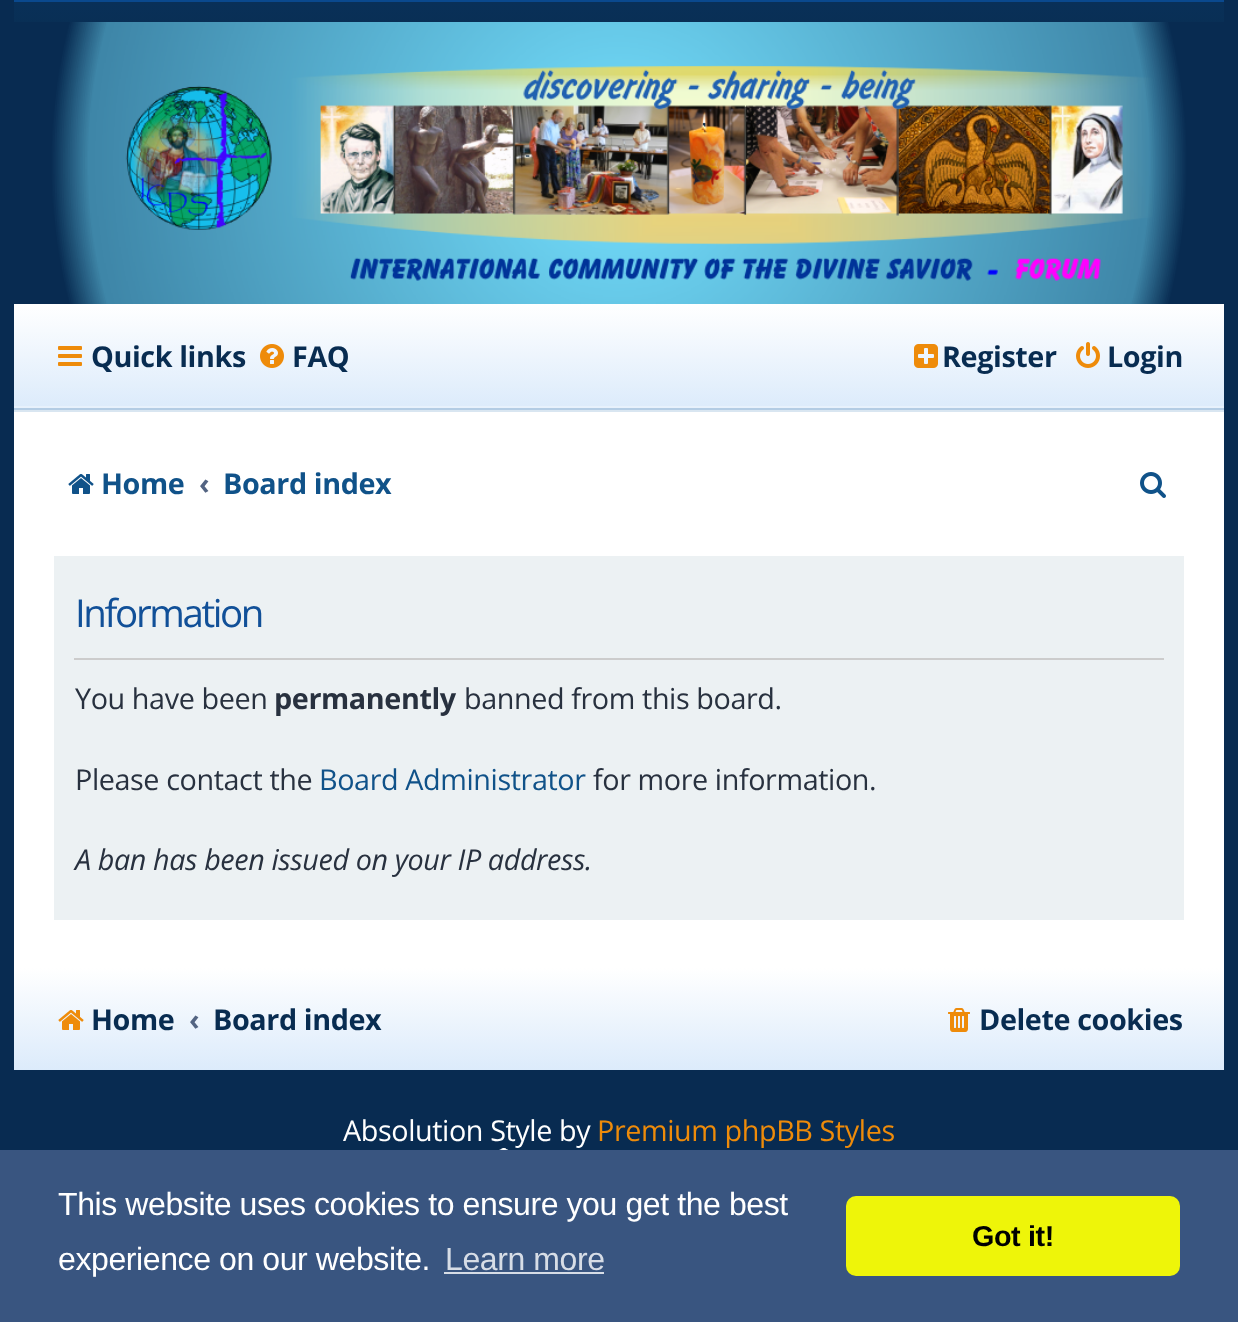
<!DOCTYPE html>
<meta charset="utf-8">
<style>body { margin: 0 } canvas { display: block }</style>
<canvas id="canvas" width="1238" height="1322"></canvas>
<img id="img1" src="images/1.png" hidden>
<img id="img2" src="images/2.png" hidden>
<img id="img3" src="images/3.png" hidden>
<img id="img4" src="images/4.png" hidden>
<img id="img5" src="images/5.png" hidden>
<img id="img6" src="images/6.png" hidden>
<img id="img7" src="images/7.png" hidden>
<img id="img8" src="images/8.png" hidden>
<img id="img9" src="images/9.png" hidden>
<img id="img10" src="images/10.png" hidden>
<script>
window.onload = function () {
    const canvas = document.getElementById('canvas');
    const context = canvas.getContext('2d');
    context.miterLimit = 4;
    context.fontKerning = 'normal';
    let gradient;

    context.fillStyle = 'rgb(8, 43, 81)';
    context.fillRect(0, 0, 1238, 1322);
    context.fillStyle = 'rgb(255, 255, 255)';
    context.fillRect(14, 412, 1210, 556);
    gradient = context.createLinearGradient(619, 2, 619, 304);
    gradient.addColorStop(0, 'rgb(9, 48, 88)');
    gradient.addColorStop(1, 'rgb(7, 34, 47)');
    context.fillStyle = gradient;
    context.fillRect(14, 2, 1210, 155);
    context.fillStyle = 'rgb(10, 73, 142)';
    context.fillRect(14, 0, 1210, 2);
    context.drawImage(document.getElementById('img1'), 14, 22, 1210, 282);
    context.fillStyle = 'rgb(217, 230, 241)';
    context.fillRect(14, 410, 1210, 2);
    gradient = context.createLinearGradient(619, 408, 619, 304);
    gradient.addColorStop(0, 'rgb(220, 235, 251)');
    gradient.addColorStop(1, 'rgb(255, 255, 255)');
    context.fillStyle = gradient;
    context.fillRect(14, 304, 1210, 102);
    context.fillStyle = 'rgb(231, 241, 252)';
    context.fillRect(14, 406, 1210, 2);
    context.fillStyle = 'rgb(179, 204, 228)';
    context.fillRect(14, 408, 1210, 2);
    context.drawImage(document.getElementById('img2'), 58, 346, 24, 20);
    context.drawImage(document.getElementById('img3'), 260, 344, 24, 24);
    context.drawImage(document.getElementById('img4'), 914, 344, 24, 24);
    context.drawImage(document.getElementById('img5'), 1076, 342, 24, 26);
    context.drawImage(document.getElementById('img6'), 68, 474, 26, 20);
    context.drawImage(document.getElementById('img7'), 1140, 472, 26, 26);
    context.fillStyle = 'rgb(236, 241, 243)';
    context.fillRect(54, 556, 1130, 364);
    context.fillStyle = 'rgb(204, 204, 204)';
    context.fillRect(74, 658, 1090, 2);
    gradient = context.createLinearGradient(619, 1070, 619, 968);
    gradient.addColorStop(0, 'rgb(220, 235, 251)');
    gradient.addColorStop(1, 'rgb(255, 255, 255)');
    context.fillStyle = gradient;
    context.fillRect(14, 968, 1210, 102);
    context.drawImage(document.getElementById('img8'), 58, 1010, 26, 20);
    context.drawImage(document.getElementById('img9'), 948, 1008, 22, 24);
    context.drawImage(document.getElementById('img10'), 499, 1148, 10, 2);
    context.fillStyle = 'rgb(57, 85, 128)';
    context.fillRect(0, 1150, 1238, 172);
    context.fillStyle = 'rgb(215, 221, 230)';
    context.fillRect(444, 1272, 160, 2);
    context.fillStyle = 'rgb(238, 245, 9)';
    context.beginPath();
    context.roundRect(846, 1196, 334, 80, 10);
    context.fill();
    context.letterSpacing = '-0.4px';
    context.font = 'bold 28.75px Open Sans';
    context.fillStyle = 'rgb(8, 44, 81)';
    context.fillText('Quick links', 91, 367);
    context.fillText('FAQ', 292, 367);
    context.fillText('Register', 942, 367);
    context.fillText('Login', 1107, 367);
    context.fillStyle = 'rgb(16, 82, 137)';
    context.fillText('Home', 101, 494);
    context.fillStyle = 'rgb(83, 100, 130)';
    context.fillText('‹', 199, 494);
    context.fillStyle = 'rgb(16, 82, 137)';
    context.fillText('Board index', 223, 494);
    context.letterSpacing = '-2.4px';
    context.font = '38.5px Open Sans';
    context.fillStyle = 'rgb(17, 80, 152)';
    context.fillText('Information', 75, 627);
    context.letterSpacing = '-0.4px';
    context.font = '28.75px Open Sans';
    context.fillStyle = 'rgb(40, 49, 63)';
    context.fillText('You have been', 75, 709);
    context.font = 'bold 28.75px Open Sans';
    context.fillText('permanently', 274, 709);
    context.font = '28.75px Open Sans';
    context.fillText('banned from this board.', 464, 709);
    context.fillText('Please contact the', 75, 790);
    context.fillStyle = 'rgb(16, 82, 137)';
    context.fillText('Board Administrator', 319, 790);
    context.fillStyle = 'rgb(40, 49, 63)';
    context.fillText('for more information.', 593, 790);
    context.font = 'italic 28.75px Open Sans';
    context.fillText('A ban has been issued on your IP address.', 75, 870);
    context.font = 'bold 28.75px Open Sans';
    context.fillStyle = 'rgb(8, 44, 81)';
    context.fillText('Home', 91, 1030);
    context.fillStyle = 'rgb(83, 100, 130)';
    context.fillText('‹', 189, 1030);
    context.fillStyle = 'rgb(8, 44, 81)';
    context.fillText('Board index', 213, 1030);
    context.fillText('Delete cookies', 979, 1030);
    context.font = '28.75px Open Sans';
    context.fillStyle = 'rgb(255, 255, 255)';
    context.fillText('Absolution Style by', 343, 1141);
    context.fillStyle = 'rgb(238, 139, 10)';
    context.fillText('Premium phpBB Styles', 597, 1141);
    context.font = '32px Liberation Sans';
    context.fillStyle = 'rgb(255, 255, 255)';
    context.fillText('This website uses cookies to ensure you get the best', 58, 1215);
    context.fillText('experience on our website.', 58, 1270);
    context.fillStyle = 'rgb(215, 221, 230)';
    context.fillText('Learn more', 445, 1270);
    context.font = 'bold 28.75px Liberation Sans';
    context.fillStyle = 'rgb(0, 0, 0)';
    context.fillText('Got it!', 972, 1246);
};
</script>
